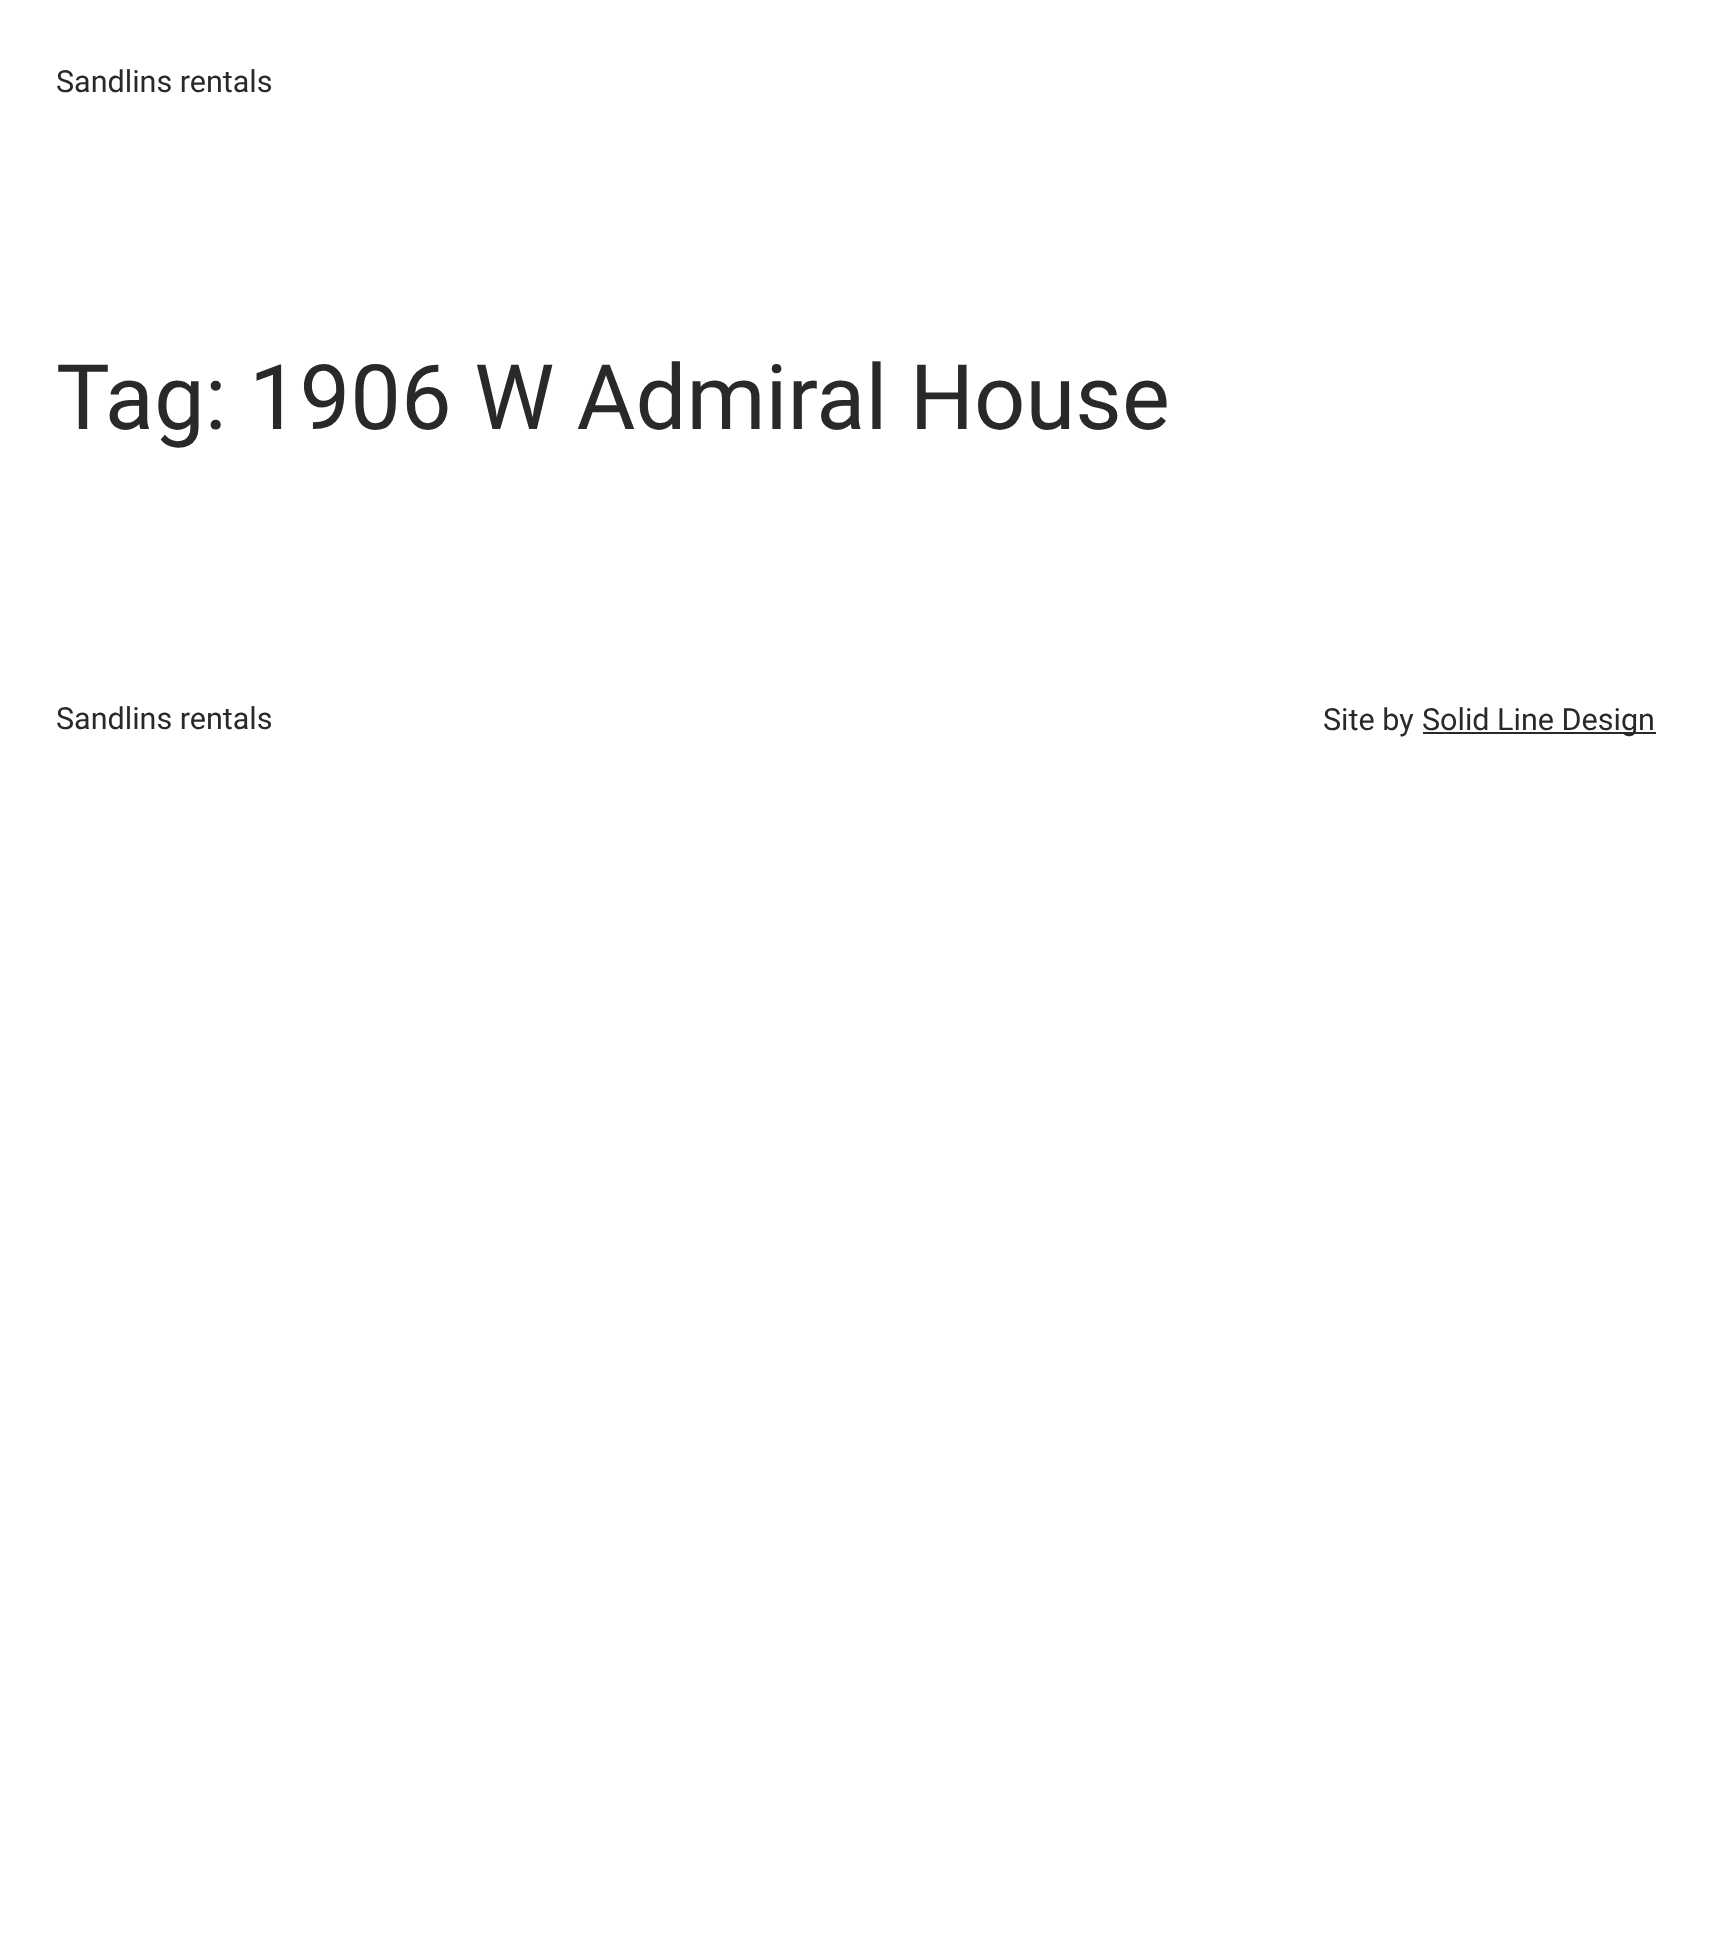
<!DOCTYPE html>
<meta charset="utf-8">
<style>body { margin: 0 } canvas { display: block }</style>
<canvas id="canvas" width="1711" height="1941"></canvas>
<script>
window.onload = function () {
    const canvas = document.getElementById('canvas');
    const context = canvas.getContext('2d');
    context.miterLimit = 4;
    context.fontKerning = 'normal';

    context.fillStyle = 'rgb(255, 255, 255)';
    context.fillRect(0, 0, 1711, 1941);
    context.fillStyle = 'rgb(41, 41, 41)';
    context.fillRect(1423, 732, 233, 2);
    context.font = '30.5px Roboto';
    context.fillText('Sandlins rentals', 56, 92);
    context.font = '90.25px Roboto';
    context.fillText('Tag: 1906 W Admiral House', 56, 429);
    context.font = '30.5px Roboto';
    context.fillText('Sandlins rentals', 56, 729);
    context.fillText('Site by', 1323, 730);
    context.fillText('Solid Line Design', 1422, 730);
};
</script>
